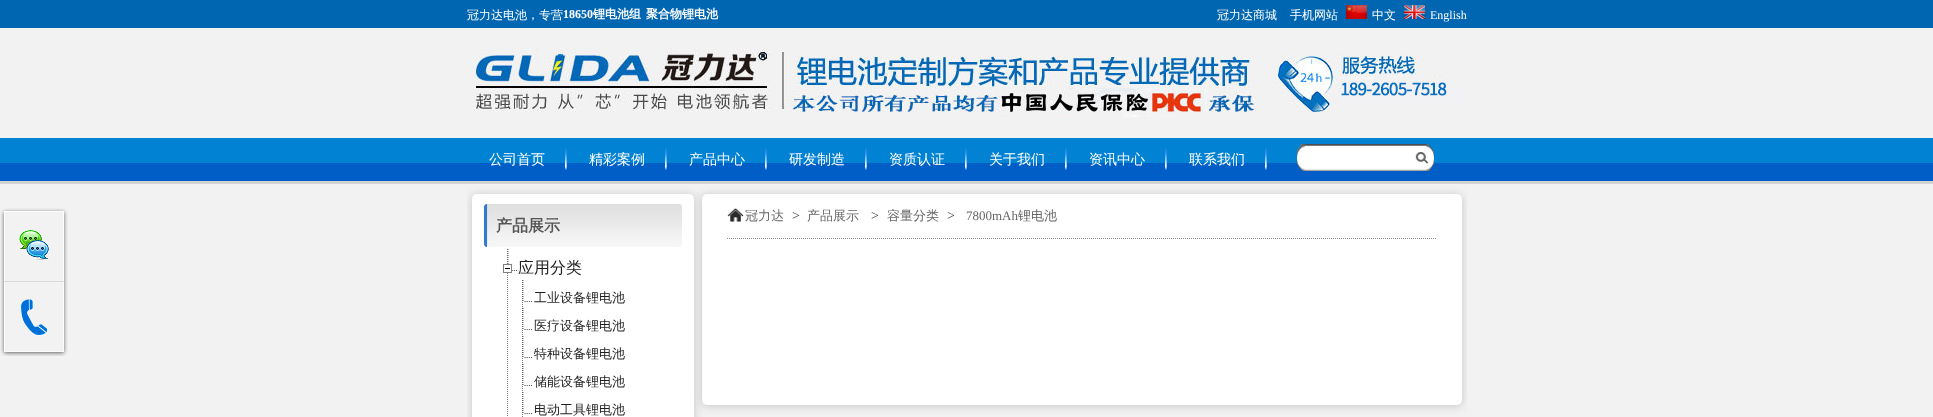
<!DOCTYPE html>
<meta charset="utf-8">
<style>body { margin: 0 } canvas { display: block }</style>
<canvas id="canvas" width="1933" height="417"></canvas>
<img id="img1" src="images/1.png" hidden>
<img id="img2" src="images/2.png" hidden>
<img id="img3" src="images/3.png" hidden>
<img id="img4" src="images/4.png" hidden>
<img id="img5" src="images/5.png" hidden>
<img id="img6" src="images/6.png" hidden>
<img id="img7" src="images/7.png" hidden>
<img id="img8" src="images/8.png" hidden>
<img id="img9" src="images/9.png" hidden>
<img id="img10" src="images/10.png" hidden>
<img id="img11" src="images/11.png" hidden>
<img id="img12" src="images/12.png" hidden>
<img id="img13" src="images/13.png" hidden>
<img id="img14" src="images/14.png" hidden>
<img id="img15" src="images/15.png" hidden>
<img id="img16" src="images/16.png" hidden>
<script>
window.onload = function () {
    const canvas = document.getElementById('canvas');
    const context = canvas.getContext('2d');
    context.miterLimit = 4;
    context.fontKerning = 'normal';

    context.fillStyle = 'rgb(0, 102, 177)';
    context.fillRect(0, 0, 1933, 417);
    context.drawImage(document.getElementById('img1'), 1346, 5, 21, 14);
    context.drawImage(document.getElementById('img2'), 1404, 5, 21, 14);
    context.fillStyle = 'rgb(242, 242, 242)';
    context.fillRect(0, 28, 1933, 110);
    context.drawImage(document.getElementById('img3'), 475, 48, 781, 69);
    context.drawImage(document.getElementById('img4'), 1275, 51, 191, 66);
    context.drawImage(document.getElementById('img5'), 0, 138, 1933, 43);
    context.fillStyle = 'rgb(211, 211, 211)';
    context.fillRect(0, 181, 1933, 3);
    context.drawImage(document.getElementById('img6'), 565, 147, 2, 23);
    context.drawImage(document.getElementById('img6'), 665, 147, 2, 23);
    context.drawImage(document.getElementById('img6'), 765, 147, 2, 23);
    context.drawImage(document.getElementById('img6'), 865, 147, 2, 23);
    context.drawImage(document.getElementById('img6'), 965, 147, 2, 23);
    context.drawImage(document.getElementById('img6'), 1065, 147, 2, 23);
    context.drawImage(document.getElementById('img6'), 1165, 147, 2, 23);
    context.drawImage(document.getElementById('img6'), 1265, 147, 2, 23);
    context.drawImage(document.getElementById('img7'), 1297, 144, 137, 27);
    context.fillStyle = 'rgb(242, 242, 242)';
    context.fillRect(0, 184, 1933, 233);
    context.drawImage(document.getElementById('img8'), 0, 208, 68, 74);
    context.drawImage(document.getElementById('img9'), 0, 282, 68, 74);
    context.save();
    context.beginPath();
    context.rect(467, 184, 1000, 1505);
    context.clip();
    context.fillStyle = 'rgb(197, 197, 197)';
    context.filter = 'blur(5px)';
    context.beginPath();
    context.roundRect(702, 195, 760, 211, 5);
    context.fill();
    context.filter = 'none';
    context.restore();
    context.fillStyle = 'rgb(255, 255, 255)';
    context.beginPath();
    context.roundRect(702, 194, 760, 211, 5);
    context.fill();
    context.drawImage(document.getElementById('img10'), 727, 208, 17, 14);
    context.beginPath();
    context.moveTo(727, 238.5);
    context.lineTo(1437, 238.5);
    context.strokeStyle = 'rgb(144, 144, 144)';
    context.setLineDash([1, 1]);
    context.stroke();
    context.save();
    context.beginPath();
    context.rect(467, 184, 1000, 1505);
    context.clip();
    context.fillStyle = 'rgb(197, 197, 197)';
    context.filter = 'blur(5px)';
    context.beginPath();
    context.roundRect(472, 195, 222, 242, 5);
    context.fill();
    context.filter = 'none';
    context.restore();
    context.beginPath();
    context.roundRect(472, 194, 222, 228, 5);
    context.fill();
    context.drawImage(document.getElementById('img11'), 484, 204, 198, 43);
    context.drawImage(document.getElementById('img12'), 507, 249, 1, 167);
    context.drawImage(document.getElementById('img13'), 507, 249, 10, 22);
    context.drawImage(document.getElementById('img14'), 503, 264, 9, 9);
    context.drawImage(document.getElementById('img15'), 522, 280, 1, 137);
    context.drawImage(document.getElementById('img16'), 522, 280, 10, 22);
    context.drawImage(document.getElementById('img16'), 522, 308, 10, 22);
    context.drawImage(document.getElementById('img16'), 522, 336, 10, 22);
    context.drawImage(document.getElementById('img16'), 522, 364, 10, 22);
    context.drawImage(document.getElementById('img16'), 522, 392, 10, 22);
    context.font = '500 12px WenQuanYi Zen Hei';
    context.fillText('冠力达电池，专营', 467, 19);
    context.font = 'bold 12px Liberation Serif';
    context.fillText('18650', 563, 18);
    context.font = 'bold 12px WenQuanYi Zen Hei';
    context.fillText('锂电池组', 593, 18);
    context.fillText('聚合物锂电池', 646, 18);
    context.font = '500 12px WenQuanYi Zen Hei';
    context.fillText('冠力达商城', 1217, 19);
    context.fillText('手机网站', 1290, 19);
    context.fillText('中文', 1372, 19);
    context.font = '12px Liberation Serif';
    context.fillText('English', 1430, 19);
    context.font = '500 14px WenQuanYi Zen Hei';
    context.fillText('公司首页', 489, 164);
    context.fillText('精彩案例', 589, 164);
    context.fillText('产品中心', 689, 164);
    context.fillText('研发制造', 789, 164);
    context.fillText('资质认证', 889, 164);
    context.fillText('关于我们', 989, 164);
    context.fillText('资讯中心', 1089, 164);
    context.fillText('联系我们', 1189, 164);
    context.font = '500 13px WenQuanYi Zen Hei';
    context.fillStyle = 'rgb(102, 102, 102)';
    context.fillText('冠力达', 745, 220);
    context.font = '14px Liberation Serif';
    context.fillStyle = 'rgb(63, 63, 63)';
    context.fillText('>', 792, 220);
    context.font = '500 13px WenQuanYi Zen Hei';
    context.fillStyle = 'rgb(102, 102, 102)';
    context.fillText('产品展示', 807, 220);
    context.font = '14px Liberation Serif';
    context.fillStyle = 'rgb(63, 63, 63)';
    context.fillText('>', 871, 220);
    context.font = '500 13px WenQuanYi Zen Hei';
    context.fillStyle = 'rgb(102, 102, 102)';
    context.fillText('容量分类', 887, 220);
    context.font = '14px Liberation Serif';
    context.fillStyle = 'rgb(63, 63, 63)';
    context.fillText('>', 947, 220);
    context.font = '13px Liberation Serif';
    context.fillStyle = 'rgb(102, 102, 102)';
    context.fillText('7800mAh', 966, 220);
    context.font = '500 13px WenQuanYi Zen Hei';
    context.fillText('锂电池', 1018, 220);
    context.font = 'bold 16px WenQuanYi Zen Hei';
    context.fillStyle = 'rgb(85, 85, 85)';
    context.fillText('产品展示', 496, 231);
    context.font = '500 16px WenQuanYi Zen Hei';
    context.fillStyle = 'rgb(31, 31, 31)';
    context.fillText('应用分类', 518, 273);
    context.font = '500 13px WenQuanYi Zen Hei';
    context.fillText('工业设备锂电池', 534, 302);
    context.fillText('医疗设备锂电池', 534, 330);
    context.fillText('特种设备锂电池', 534, 358);
    context.fillText('储能设备锂电池', 534, 386);
    context.fillText('电动工具锂电池', 534, 414);
};
</script>
